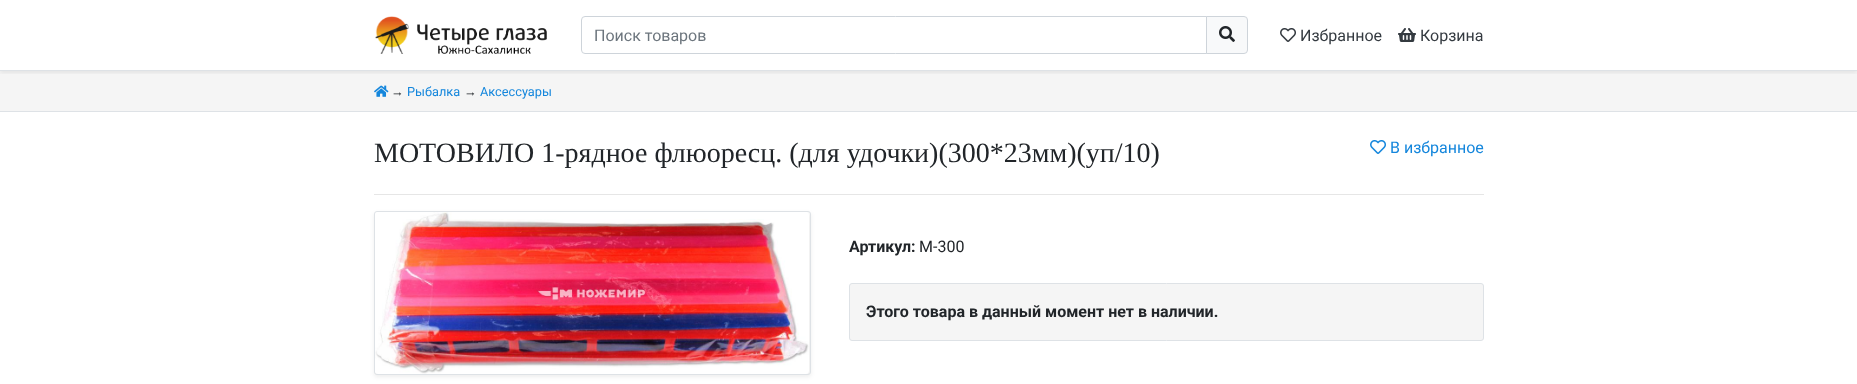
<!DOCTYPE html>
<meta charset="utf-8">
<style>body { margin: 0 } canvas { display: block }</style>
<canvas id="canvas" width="1857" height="384"></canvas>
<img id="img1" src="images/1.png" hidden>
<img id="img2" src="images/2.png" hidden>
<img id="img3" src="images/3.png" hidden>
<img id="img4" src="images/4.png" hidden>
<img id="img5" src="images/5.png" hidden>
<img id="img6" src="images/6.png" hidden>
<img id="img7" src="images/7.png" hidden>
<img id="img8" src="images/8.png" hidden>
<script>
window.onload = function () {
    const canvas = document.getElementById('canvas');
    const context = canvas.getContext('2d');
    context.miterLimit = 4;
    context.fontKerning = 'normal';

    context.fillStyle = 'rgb(255, 255, 255)';
    context.fillRect(0, 0, 1857, 384);
    context.fillStyle = 'rgb(245, 245, 245)';
    context.fillRect(0, 71, 1857, 40);
    context.save();
    context.beginPath();
    context.rect(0, 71, 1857, 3);
    context.clip();
    context.fillStyle = 'rgba(0, 0, 0, 0.07)';
    context.filter = 'blur(2px)';
    context.beginPath();
    context.rect(0, 2, 1857, 71);
    context.fill();
    context.filter = 'none';
    context.restore();
    context.fillStyle = 'rgb(222, 226, 230)';
    context.fillRect(0, 70, 1857, 1);
    context.drawImage(document.getElementById('img1'), 375, 16, 34, 38);
    context.drawImage(document.getElementById('img2'), 417, 24, 130, 30);
    context.beginPath();
    context.roundRect(581.5, 16.5, 625, 37, [3.5, 0, 0, 3.5]);
    context.strokeStyle = 'rgb(206, 212, 218)';
    context.stroke();
    context.fillStyle = 'rgb(248, 249, 250)';
    context.beginPath();
    context.roundRect(1206.5, 16.5, 41, 37, [0, 3.5, 3.5, 0]);
    context.fill();
    context.stroke();
    context.drawImage(document.getElementById('img3'), 1219, 26, 16, 16);
    context.drawImage(document.getElementById('img4'), 1280, 28, 16, 14);
    context.drawImage(document.getElementById('img5'), 1398, 28, 18, 14);
    context.fillStyle = 'rgb(222, 226, 230)';
    context.fillRect(0, 111, 1857, 1);
    context.drawImage(document.getElementById('img6'), 374, 85, 15, 12);
    context.drawImage(document.getElementById('img7'), 1370, 140, 16, 14);
    context.fillStyle = 'rgb(230, 230, 230)';
    context.fillRect(374, 194, 1110, 1);
    context.fillStyle = 'rgba(0, 0, 0, 0.07)';
    context.filter = 'blur(2px)';
    context.beginPath();
    context.roundRect(374, 213, 437, 164, 3);
    context.fill();
    context.filter = 'none';
    context.beginPath();
    context.roundRect(374.5, 211.5, 436, 163, 2.5);
    context.strokeStyle = 'rgb(222, 226, 230)';
    context.stroke();
    context.drawImage(document.getElementById('img8'), 375, 212, 434, 162);
    context.fillStyle = 'rgb(245, 245, 245)';
    context.beginPath();
    context.roundRect(849.5, 283.5, 634, 57, 2.5);
    context.fill();
    context.stroke();
    context.font = '16px Roboto';
    context.fillStyle = 'rgb(108, 117, 125)';
    context.fillText('Поиск товаров', 594, 41);
    context.fillStyle = 'rgb(52, 58, 64)';
    context.fillText('Избранное', 1300, 41);
    context.fillText('Корзина', 1420, 41);
    context.font = '12.75px Liberation Sans';
    context.fillStyle = 'rgb(33, 37, 41)';
    context.fillText('→', 391, 96);
    context.font = '12.75px Roboto';
    context.fillStyle = 'rgb(20, 134, 220)';
    context.fillText('Рыбалка', 407, 96);
    context.font = '12.75px Liberation Sans';
    context.fillStyle = 'rgb(33, 37, 41)';
    context.fillText('→', 464, 96);
    context.font = '12.75px Roboto';
    context.fillStyle = 'rgb(20, 134, 220)';
    context.fillText('Аксессуары', 480, 96);
    context.font = '28px Liberation Serif';
    context.fillStyle = 'rgb(33, 37, 41)';
    context.fillText('МОТОВИЛО 1-рядное флюоресц. (для удочки)(300*23мм)(уп/10)', 374, 162);
    context.font = '16px Roboto';
    context.fillStyle = 'rgb(20, 134, 220)';
    context.fillText('В избранное', 1390, 153);
    context.font = 'bold 16px Roboto';
    context.fillStyle = 'rgb(33, 37, 41)';
    context.fillText('Артикул:', 849, 252);
    context.font = '16px Roboto';
    context.fillText('М-300', 919, 252);
    context.font = 'bold 16px Roboto';
    context.fillText('Этого товара в данный момент нет в наличии.', 866, 317);
};
</script>
